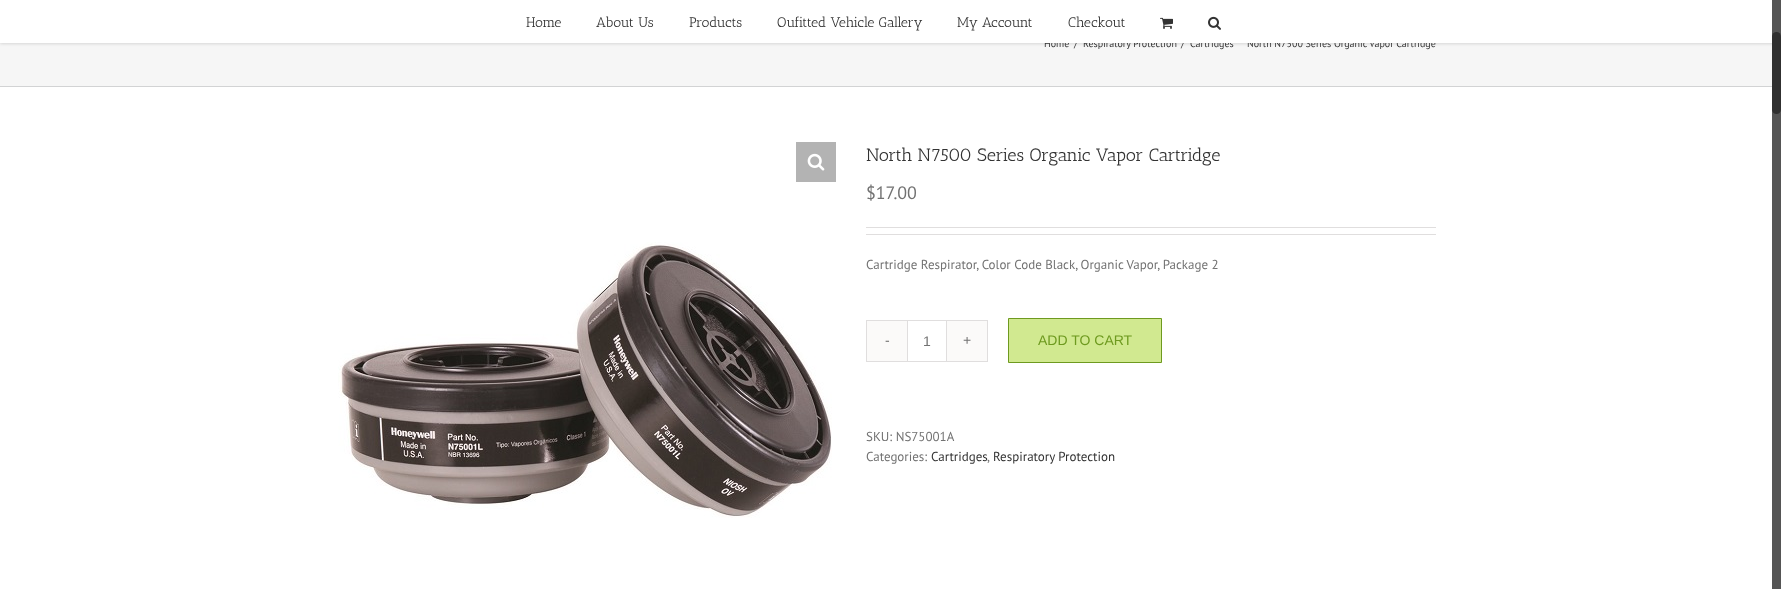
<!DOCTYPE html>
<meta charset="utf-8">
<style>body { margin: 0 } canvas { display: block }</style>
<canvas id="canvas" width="1781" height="589"></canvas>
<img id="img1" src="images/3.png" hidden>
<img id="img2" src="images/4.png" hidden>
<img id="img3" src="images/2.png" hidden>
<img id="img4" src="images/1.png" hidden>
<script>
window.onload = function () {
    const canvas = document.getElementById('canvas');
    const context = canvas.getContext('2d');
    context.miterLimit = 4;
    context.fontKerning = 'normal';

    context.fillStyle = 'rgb(255, 255, 255)';
    context.fillRect(0, 0, 1781, 589);
    context.fillStyle = 'rgb(246, 246, 246)';
    context.fillRect(0, 43, 1772, 43);
    context.fillStyle = 'rgba(0, 0, 0, 0.12)';
    context.filter = 'blur(1.5px)';
    context.beginPath();
    context.rect(0, 1, 1781, 43);
    context.fill();
    context.filter = 'none';
    context.fillStyle = 'rgb(210, 211, 212)';
    context.fillRect(0, 86, 1772, 1);
    context.fillStyle = 'rgb(179, 179, 179)';
    context.fillRect(796, 142, 40, 40);
    context.drawImage(document.getElementById('img1'), 807, 153, 18, 18);
    context.drawImage(document.getElementById('img2'), 338, 242, 494, 276);
    context.fillStyle = 'rgb(224, 222, 222)';
    context.fillRect(866, 227, 570, 1);
    context.fillRect(866, 234, 570, 1);
    context.strokeStyle = 'rgb(224, 222, 222)';
    context.strokeRect(866.5, 320.5, 121, 41);
    context.fillStyle = 'rgb(251, 250, 249)';
    context.fillRect(867, 321, 40, 40);
    context.fillStyle = 'rgb(224, 222, 222)';
    context.fillRect(946, 321, 1, 40);
    context.fillRect(907, 321, 1, 40);
    context.fillStyle = 'rgb(251, 250, 249)';
    context.fillRect(947, 321, 40, 40);
    context.fillStyle = 'rgb(209, 233, 144)';
    context.beginPath();
    context.rect(1008.5, 318.5, 153, 44);
    context.fill();
    context.strokeStyle = 'rgb(110, 154, 31)';
    context.stroke();
    context.fillStyle = 'rgb(85, 85, 85)';
    context.fillRect(1772, 0, 9, 589);
    context.fillStyle = 'rgb(48, 48, 48)';
    context.beginPath();
    context.roundRect(1772, 32, 9, 82, 4.5);
    context.fill();
    context.font = '10px PT Sans';
    context.fillStyle = 'rgb(51, 51, 51)';
    context.fillText('Home', 1044, 47);
    context.fillText('/', 1074, 47);
    context.fillText('Respiratory Protection', 1083, 47);
    context.fillText('/', 1181, 47);
    context.fillText('Cartridges', 1190, 47);
    context.fillText('North N7500 Series Organic Vapor Cartridge', 1247, 47);
    context.fillStyle = 'rgb(255, 255, 255)';
    context.fillRect(0, 0, 1772, 43);
    context.drawImage(document.getElementById('img3'), 1208, 16, 13, 14);
    context.drawImage(document.getElementById('img4'), 1160, 17, 13, 12);
    context.font = '14px Antic Slab';
    context.fillStyle = 'rgb(51, 51, 51)';
    context.fillText('Checkout', 1068, 27);
    context.fillText('My Account', 957, 27);
    context.fillText('Oufitted Vehicle Gallery', 777, 27);
    context.fillText('Products', 689, 27);
    context.fillText('About Us', 596, 27);
    context.fillText('Home', 526, 27);
    context.font = '18px Antic Slab';
    context.fillText('North N7500 Series Organic Vapor Cartridge', 866, 161);
    context.font = '18px PT Sans';
    context.fillStyle = 'rgb(114, 114, 114)';
    context.fillText('$17.00', 866, 199);
    context.font = '13px PT Sans';
    context.fillText('Cartridge Respirator, Color Code Black, Organic Vapor, Package 2', 866, 269);
    context.font = '14px Liberation Sans';
    context.fillText('-', 885, 345);
    context.fillText('1', 923, 346);
    context.fillText('+', 963, 345);
    context.fillStyle = 'rgb(110, 154, 31)';
    context.fillText('ADD TO CART', 1038, 345);
    context.font = '13px PT Sans';
    context.fillStyle = 'rgb(114, 114, 114)';
    context.fillText('SKU: NS75001A', 866, 441);
    context.fillText('Categories:', 866, 461);
    context.fillStyle = 'rgb(51, 51, 51)';
    context.fillText('Cartridges', 931, 461);
    context.fillStyle = 'rgb(114, 114, 114)';
    context.fillText(',', 987, 461);
    context.fillStyle = 'rgb(51, 51, 51)';
    context.fillText('Respiratory Protection', 993, 461);
};
</script>
